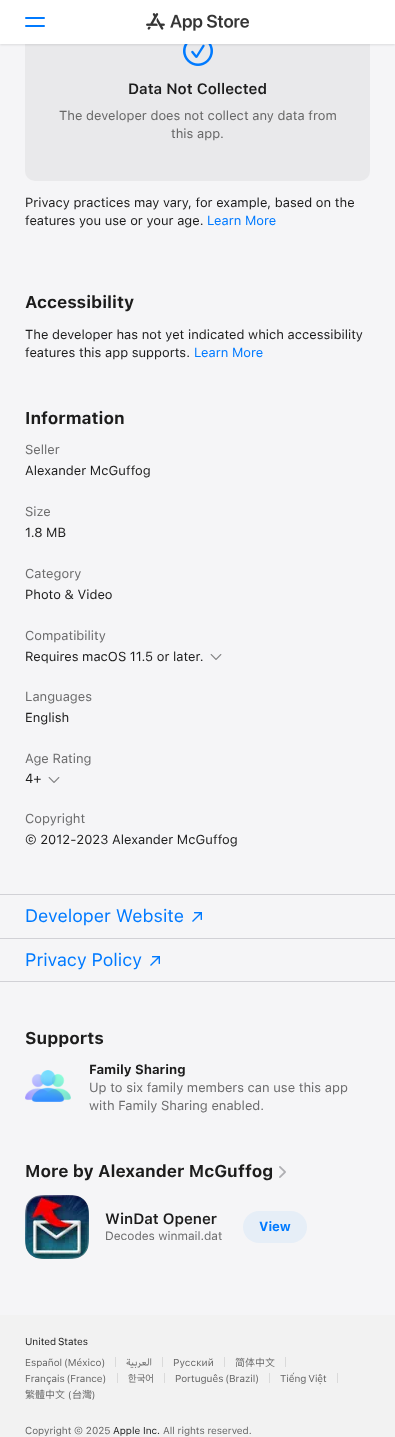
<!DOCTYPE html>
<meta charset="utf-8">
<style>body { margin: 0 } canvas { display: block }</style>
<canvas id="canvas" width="395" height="1437"></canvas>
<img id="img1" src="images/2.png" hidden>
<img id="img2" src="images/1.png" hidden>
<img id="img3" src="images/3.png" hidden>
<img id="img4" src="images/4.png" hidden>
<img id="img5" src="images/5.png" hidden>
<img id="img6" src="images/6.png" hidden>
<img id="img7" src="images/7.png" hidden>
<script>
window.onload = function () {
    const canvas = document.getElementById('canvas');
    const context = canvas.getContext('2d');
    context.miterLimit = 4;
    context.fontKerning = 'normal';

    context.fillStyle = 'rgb(245, 245, 247)';
    context.fillRect(0, 0, 395, 1437);
    context.fillStyle = 'rgb(233, 233, 235)';
    context.beginPath();
    context.roundRect(25, 6, 345, 175, 10);
    context.fill();
    context.drawImage(document.getElementById('img1'), 183, 44, 30, 22);
    context.fillStyle = 'rgba(0, 0, 0, 0.1)';
    context.filter = 'blur(1px)';
    context.beginPath();
    context.rect(0, 1, 395, 44);
    context.fill();
    context.filter = 'none';
    context.fillStyle = 'rgb(255, 255, 255)';
    context.fillRect(0, 0, 395, 44);
    context.fillStyle = 'rgb(0, 122, 255)';
    context.beginPath();
    context.roundRect(25, 17, 20, 2, 1);
    context.fill();
    context.beginPath();
    context.roundRect(25, 25, 20, 2, 1);
    context.fill();
    context.drawImage(document.getElementById('img2'), 146, 13, 103, 18);
    context.drawImage(document.getElementById('img3'), 210, 654, 12, 6);
    context.drawImage(document.getElementById('img3'), 48, 777, 12, 6);
    context.fillStyle = 'rgb(209, 209, 214)';
    context.fillRect(0, 894, 395, 1);
    context.fillRect(0, 938, 395, 1);
    context.drawImage(document.getElementById('img4'), 192, 912, 10, 10);
    context.fillRect(0, 981, 395, 1);
    context.drawImage(document.getElementById('img4'), 150, 956, 10, 10);
    context.drawImage(document.getElementById('img5'), 25, 1070, 46, 32);
    context.drawImage(document.getElementById('img6'), 279, 1166, 7, 12);
    context.drawImage(document.getElementById('img7'), 25, 1195, 64, 64);
    context.beginPath();
    context.roundRect(25.5, 1195.5, 63, 63, 15.5);
    context.strokeStyle = 'rgba(128, 128, 128, 0.1)';
    context.stroke();
    context.fillStyle = 'rgb(230, 238, 247)';
    context.beginPath();
    context.roundRect(243, 1211, 64, 32, 16);
    context.fill();
    context.fillStyle = 'rgb(242, 242, 242)';
    context.fillRect(0, 1315, 395, 122);
    context.fillStyle = 'rgb(218, 218, 218)';
    context.fillRect(115, 1357, 1, 10);
    context.fillRect(162, 1357, 1, 10);
    context.fillRect(224, 1357, 1, 10);
    context.fillRect(285, 1357, 1, 10);
    context.fillRect(117, 1373, 1, 10);
    context.fillRect(164, 1373, 1, 10);
    context.fillRect(269, 1373, 1, 10);
    context.fillRect(337, 1373, 1, 10);
    context.font = '600 15px SF';
    context.fillStyle = 'rgb(28, 28, 28)';
    context.fillText('Data Not Collected', 128, 94);
    context.font = '13px SF';
    context.fillStyle = 'rgb(103, 103, 103)';
    context.fillText('The developer does not collect any data from', 59, 120);
    context.fillText('this app.', 171, 138);
    context.fillStyle = 'rgb(28, 28, 28)';
    context.fillText('Privacy practices may vary, for example, based on the', 25, 207);
    context.fillText('features you use or your age.', 25, 225);
    context.fillStyle = 'rgb(0, 122, 255)';
    context.fillText('Learn More', 207, 225);
    context.font = 'bold 17px SF';
    context.fillStyle = 'rgb(28, 28, 28)';
    context.fillText('Accessibility', 25, 308);
    context.font = '13px SF';
    context.fillText('The developer has not yet indicated which accessibility', 25, 339);
    context.fillText('features this app supports.', 25, 357);
    context.fillStyle = 'rgb(0, 122, 255)';
    context.fillText('Learn More', 194, 357);
    context.font = 'bold 17px SF';
    context.fillStyle = 'rgb(28, 28, 28)';
    context.fillText('Information', 25, 424);
    context.font = '13px SF';
    context.fillStyle = 'rgb(108, 108, 109)';
    context.fillText('Seller', 25, 454);
    context.fillStyle = 'rgb(28, 28, 28)';
    context.fillText('Alexander McGuffog', 25, 475);
    context.fillStyle = 'rgb(108, 108, 109)';
    context.fillText('Size', 25, 516);
    context.fillStyle = 'rgb(28, 28, 28)';
    context.fillText('1.8 MB', 25, 537);
    context.fillStyle = 'rgb(108, 108, 109)';
    context.fillText('Category', 25, 578);
    context.fillStyle = 'rgb(28, 28, 28)';
    context.fillText('Photo & Video', 25, 599);
    context.fillStyle = 'rgb(108, 108, 109)';
    context.fillText('Compatibility', 25, 640);
    context.fillStyle = 'rgb(28, 28, 28)';
    context.fillText('Requires macOS 11.5 or later.', 25, 661);
    context.fillStyle = 'rgb(108, 108, 109)';
    context.fillText('Languages', 25, 701);
    context.fillStyle = 'rgb(28, 28, 28)';
    context.fillText('English', 25, 722);
    context.fillStyle = 'rgb(108, 108, 109)';
    context.fillText('Age Rating', 25, 763);
    context.fillStyle = 'rgb(28, 28, 28)';
    context.fillText('4+', 25, 783);
    context.fillStyle = 'rgb(108, 108, 109)';
    context.fillText('Copyright', 25, 823);
    context.fillStyle = 'rgb(28, 28, 28)';
    context.fillText('© 2012-2023 Alexander McGuffog', 25, 844);
    context.font = '18px "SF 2"';
    context.fillStyle = 'rgb(0, 122, 255)';
    context.fillText('Developer Website', 25, 922);
    context.fillText('Privacy Policy', 25, 966);
    context.font = 'bold 17px SF';
    context.fillStyle = 'rgb(28, 28, 28)';
    context.fillText('Supports', 25, 1044);
    context.font = 'bold 13px SF';
    context.fillText('Family Sharing', 89, 1074);
    context.font = '13px SF';
    context.fillStyle = 'rgb(108, 108, 109)';
    context.fillText('Up to six family members can use this app', 89, 1092);
    context.fillText('with Family Sharing enabled.', 89, 1110);
    context.font = 'bold 17px SF';
    context.fillStyle = 'rgb(28, 28, 28)';
    context.fillText('More by Alexander McGuffog', 25, 1177);
    context.font = '600 15px SF';
    context.fillText('WinDat Opener', 105, 1224);
    context.font = '12px SF';
    context.fillStyle = 'rgb(108, 108, 109)';
    context.fillText('Decodes winmail.dat', 105, 1240);
    context.font = 'bold 13px SF';
    context.fillStyle = 'rgb(0, 122, 255)';
    context.fillText('View', 259, 1231);
    context.wordSpacing = '-1px';
    context.font = '10px SF';
    context.fillStyle = 'rgb(28, 28, 28)';
    context.fillText('United States', 25, 1345);
    context.fillStyle = 'rgb(103, 103, 103)';
    context.fillText('Español (México)', 25, 1366);
    context.wordSpacing = '0px';
    context.direction = 'rtl';
    context.font = '10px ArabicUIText';
    context.fillText('العربية', 152, 1366);
    context.direction = 'ltr';
    context.font = '10px SF';
    context.fillText('Русский', 173, 1366);
    context.font = '10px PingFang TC';
    context.fillText('简体中文', 235, 1366);
    context.wordSpacing = '-1px';
    context.font = '10px SF';
    context.fillText('Français (France)', 25, 1382);
    context.wordSpacing = '0px';
    context.font = '10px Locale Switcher';
    context.fillText('한국어', 128, 1382);
    context.wordSpacing = '-1px';
    context.font = '10px SF';
    context.fillText('Português (Brazil)', 175, 1382);
    context.fillText('Tiếng Việt', 280, 1382);
    context.wordSpacing = '0px';
    context.font = '10px PingFang TC';
    context.fillText('繁體中文', 25, 1398);
    context.font = '10px "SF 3"';
    context.fillText('(', 68, 1398);
    context.font = '10px PingFang TC';
    context.fillText('台灣', 72, 1398);
    context.font = '10px "SF 3"';
    context.fillText(')', 92, 1398);
    context.font = '10px SF';
    context.fillText('Copyright © 2025', 25, 1434);
    context.fillStyle = 'rgb(28, 28, 28)';
    context.fillText('Apple Inc.', 113, 1434);
    context.fillStyle = 'rgb(103, 103, 103)';
    context.fillText('All rights reserved.', 163, 1434);
};
</script>
